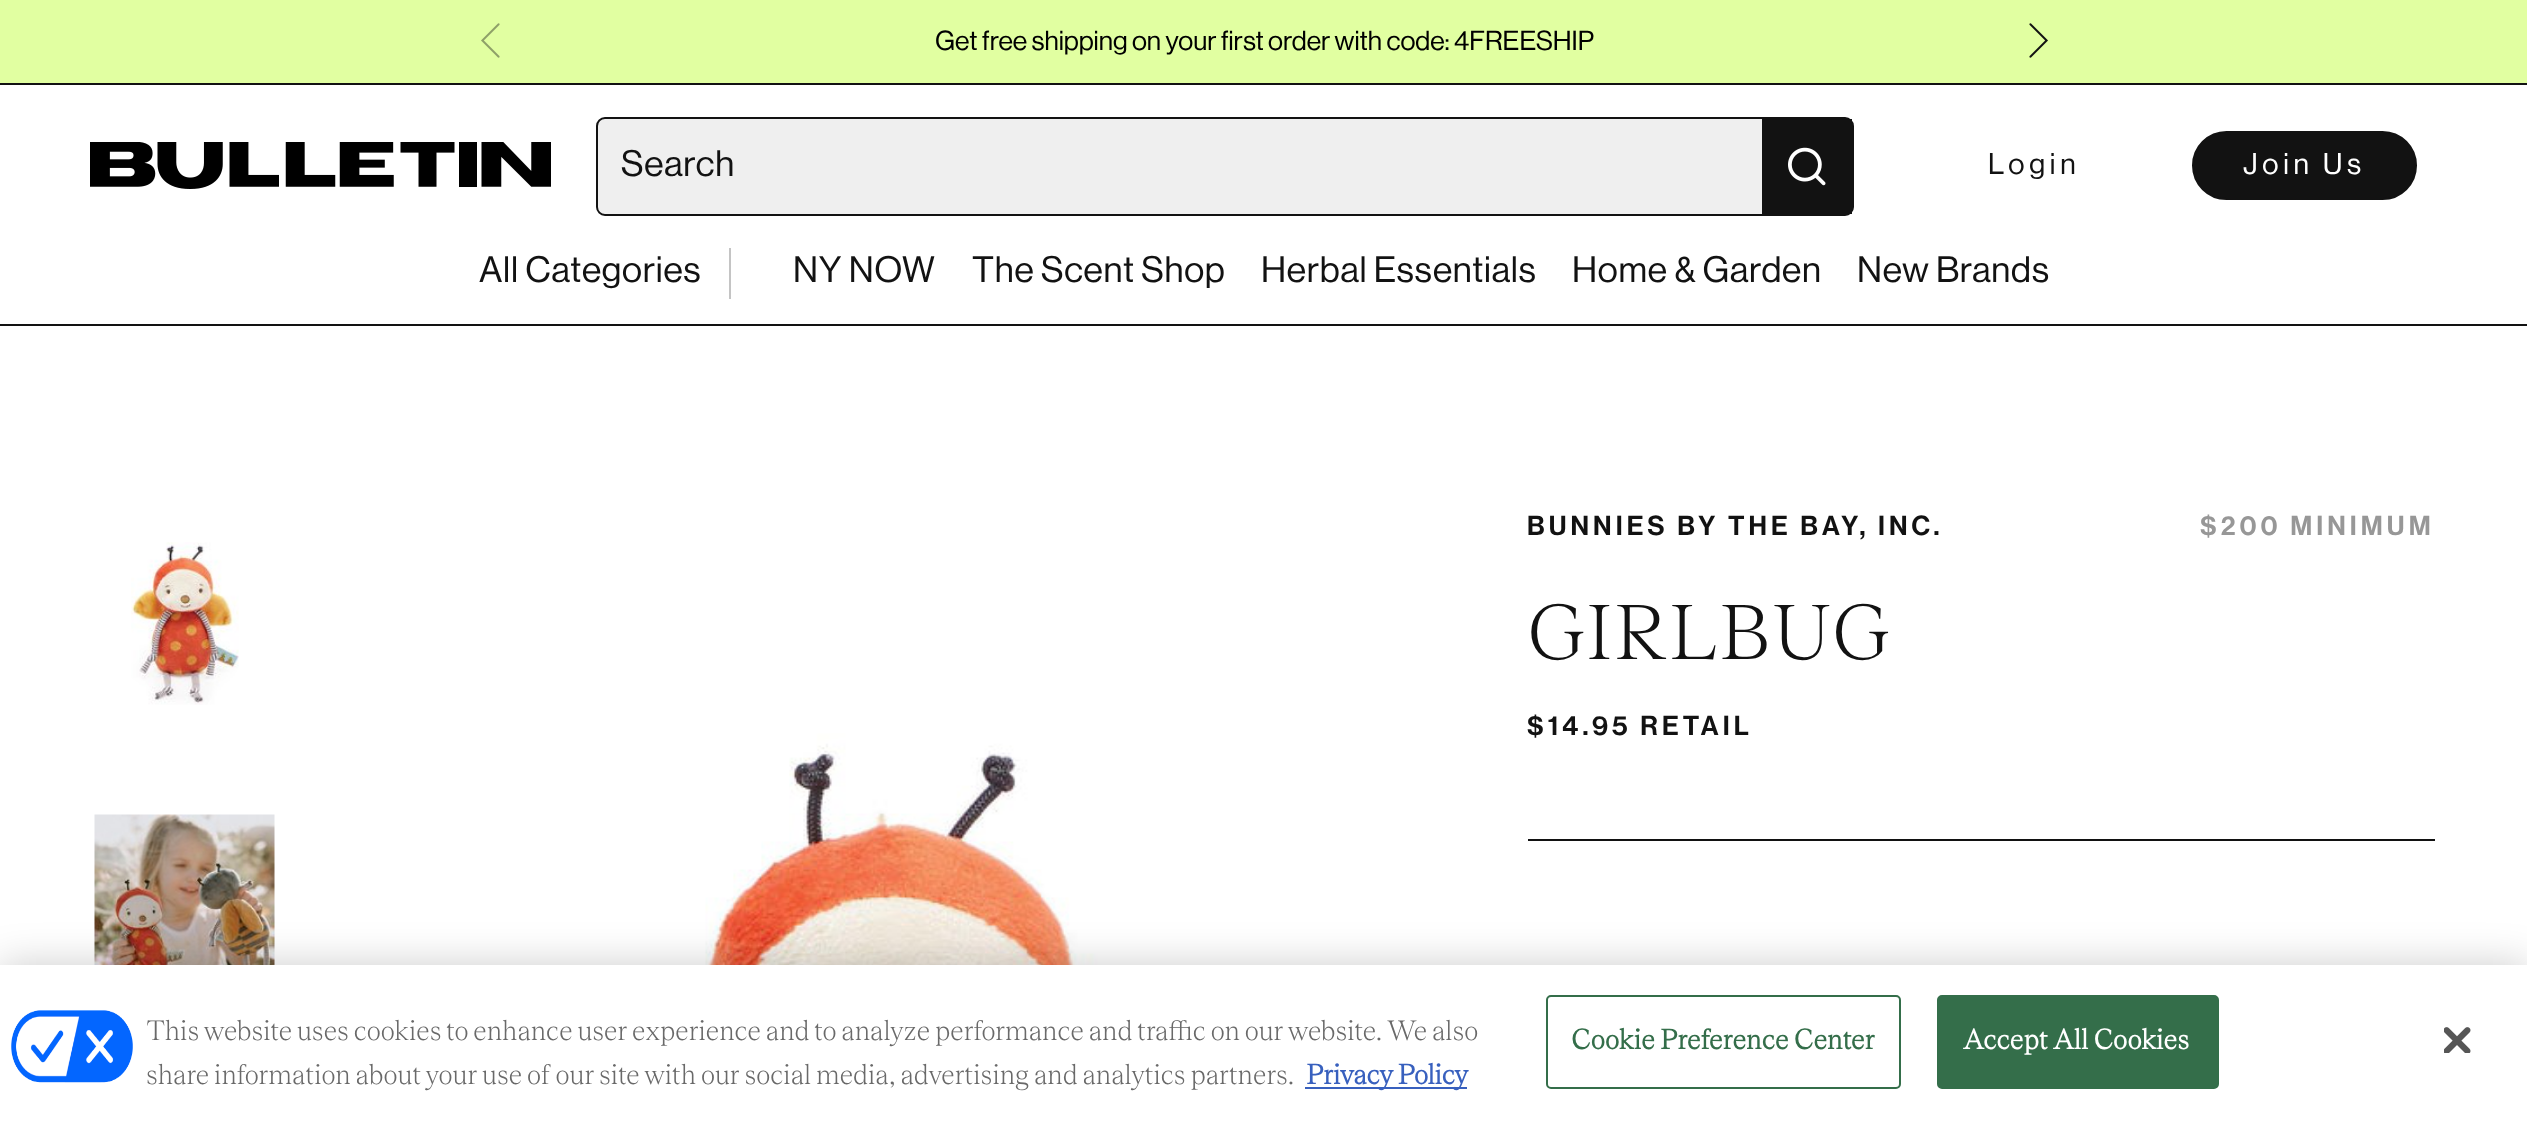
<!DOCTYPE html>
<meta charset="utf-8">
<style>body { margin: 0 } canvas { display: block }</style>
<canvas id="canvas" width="2527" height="1124"></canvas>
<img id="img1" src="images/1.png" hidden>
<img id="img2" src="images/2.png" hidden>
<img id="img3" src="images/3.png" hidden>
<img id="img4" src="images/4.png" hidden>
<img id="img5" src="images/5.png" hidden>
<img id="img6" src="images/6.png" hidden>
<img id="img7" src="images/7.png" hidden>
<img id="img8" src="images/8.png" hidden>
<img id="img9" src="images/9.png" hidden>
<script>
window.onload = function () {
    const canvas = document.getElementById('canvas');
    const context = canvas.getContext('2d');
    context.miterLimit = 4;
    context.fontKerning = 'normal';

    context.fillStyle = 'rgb(255, 255, 255)';
    context.fillRect(0, 0, 2527, 1124);
    context.fillStyle = 'rgb(225, 255, 161)';
    context.fillRect(0, 0, 2527, 83);
    context.drawImage(document.getElementById('img1'), 481, 23, 19, 35);
    context.drawImage(document.getElementById('img2'), 2029, 23, 19, 35);
    context.fillStyle = 'rgb(18, 18, 18)';
    context.fillRect(0, 324, 2527, 2);
    context.fillStyle = 'rgb(196, 196, 196)';
    context.fillRect(729, 245, 2, 54);
    context.fillStyle = 'rgb(255, 255, 255)';
    context.fillRect(729, 245, 2, 3);
    context.fillStyle = 'rgb(18, 18, 18)';
    context.fillRect(0, 83, 2527, 2);
    context.drawImage(document.getElementById('img3'), 90, 142, 461, 47);
    context.fillStyle = 'rgb(239, 239, 239)';
    context.beginPath();
    context.roundRect(597, 118, 1256, 97, 8);
    context.fill();
    context.strokeStyle = 'rgb(18, 18, 18)';
    context.lineWidth = 2;
    context.stroke();
    context.fillStyle = 'rgb(18, 18, 18)';
    context.fillRect(1762, 119, 90, 95);
    context.drawImage(document.getElementById('img4'), 1788, 147, 38, 39);
    context.beginPath();
    context.roundRect(2193, 132, 223, 67, 33.5);
    context.fill();
    context.stroke();
    context.drawImage(document.getElementById('img5'), 131, 542, 108, 163);
    context.drawImage(document.getElementById('img6'), 94, 814, 181, 151);
    context.drawImage(document.getElementById('img7'), 342, 506, 1118, 459);
    context.fillRect(1528, 839, 907, 2);
    context.fillStyle = 'rgba(0, 0, 0, 0.2)';
    context.filter = 'blur(20px)';
    context.beginPath();
    context.rect(0, 965, 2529, 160);
    context.fill();
    context.filter = 'none';
    context.fillStyle = 'rgb(255, 255, 255)';
    context.fillRect(0, 965, 2527, 159);
    context.drawImage(document.getElementById('img8'), 11, 1010, 122, 73);
    context.fillStyle = 'rgb(56, 96, 190)';
    context.fillRect(1305, 1087, 162, 2);
    context.beginPath();
    context.roundRect(1547, 996, 353, 92, 4);
    context.strokeStyle = 'rgb(52, 110, 74)';
    context.stroke();
    context.fillStyle = 'rgb(52, 110, 74)';
    context.beginPath();
    context.roundRect(1938, 996, 280, 92, 4);
    context.fill();
    context.stroke();
    context.drawImage(document.getElementById('img9'), 2444, 1027, 27, 26);
    context.font = '27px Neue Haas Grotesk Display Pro';
    context.fillStyle = 'rgb(0, 0, 0)';
    context.fillText('Get free shipping on your first order with code: 4FREESHIP', 935, 50);
    context.letterSpacing = '0.75px';
    context.font = '36px Neue Haas Grotesk Display Pro';
    context.fillStyle = 'rgb(18, 18, 18)';
    context.fillText('Search', 621, 176);
    context.letterSpacing = '4.75px';
    context.font = '29.25px Neue Haas Grotesk Display Pro';
    context.fillText('Login', 1988, 174);
    context.fillStyle = 'rgb(255, 255, 255)';
    context.fillText('Join Us', 2243, 174);
    context.letterSpacing = '0.75px';
    context.font = '36px Neue Haas Grotesk Display Pro';
    context.fillStyle = 'rgb(18, 18, 18)';
    context.fillText('All Categories', 479, 282);
    context.fillText('NY NOW', 793, 282);
    context.fillText('The Scent Shop', 972, 282);
    context.fillText('Herbal Essentials', 1261, 282);
    context.fillText('Home & Garden', 1572, 282);
    context.fillText('New Brands', 1857, 282);
    context.letterSpacing = '4.05px';
    context.font = '500 27px Neue Haas Grotesk Display Pro';
    context.fillText('BUNNIES BY THE BAY, INC.', 1527, 535);
    context.fillStyle = 'rgb(151, 151, 151)';
    context.fillText('$200 MINIMUM', 2200, 535);
    context.letterSpacing = '0.75px';
    context.font = '300 81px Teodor';
    context.fillStyle = 'rgb(18, 18, 18)';
    context.fillText('GIRLBUG', 1527, 659);
    context.letterSpacing = '4.05px';
    context.font = '500 27px Neue Haas Grotesk Display Pro';
    context.fillText('$14.95 RETAIL', 1527, 735);
    context.letterSpacing = '0px';
    context.font = '300 29.25px Teodor';
    context.fillStyle = 'rgb(105, 105, 105)';
    context.fillText('This website uses cookies to enhance user experience and to analyze performance and traffic on our website. We also', 146, 1040);
    context.fillText('share information about your use of our site with our social media, advertising and analytics partners.', 146, 1084);
    context.font = 'bold 29.25px Teodor';
    context.fillStyle = 'rgb(56, 96, 190)';
    context.fillText('Privacy Policy', 1306, 1084);
    context.letterSpacing = '0.25px';
    context.fillStyle = 'rgb(52, 110, 74)';
    context.fillText('Cookie Preference Center', 1571, 1049);
    context.fillStyle = 'rgb(255, 255, 255)';
    context.fillText('Accept All Cookies', 1963, 1049);
};
</script>
